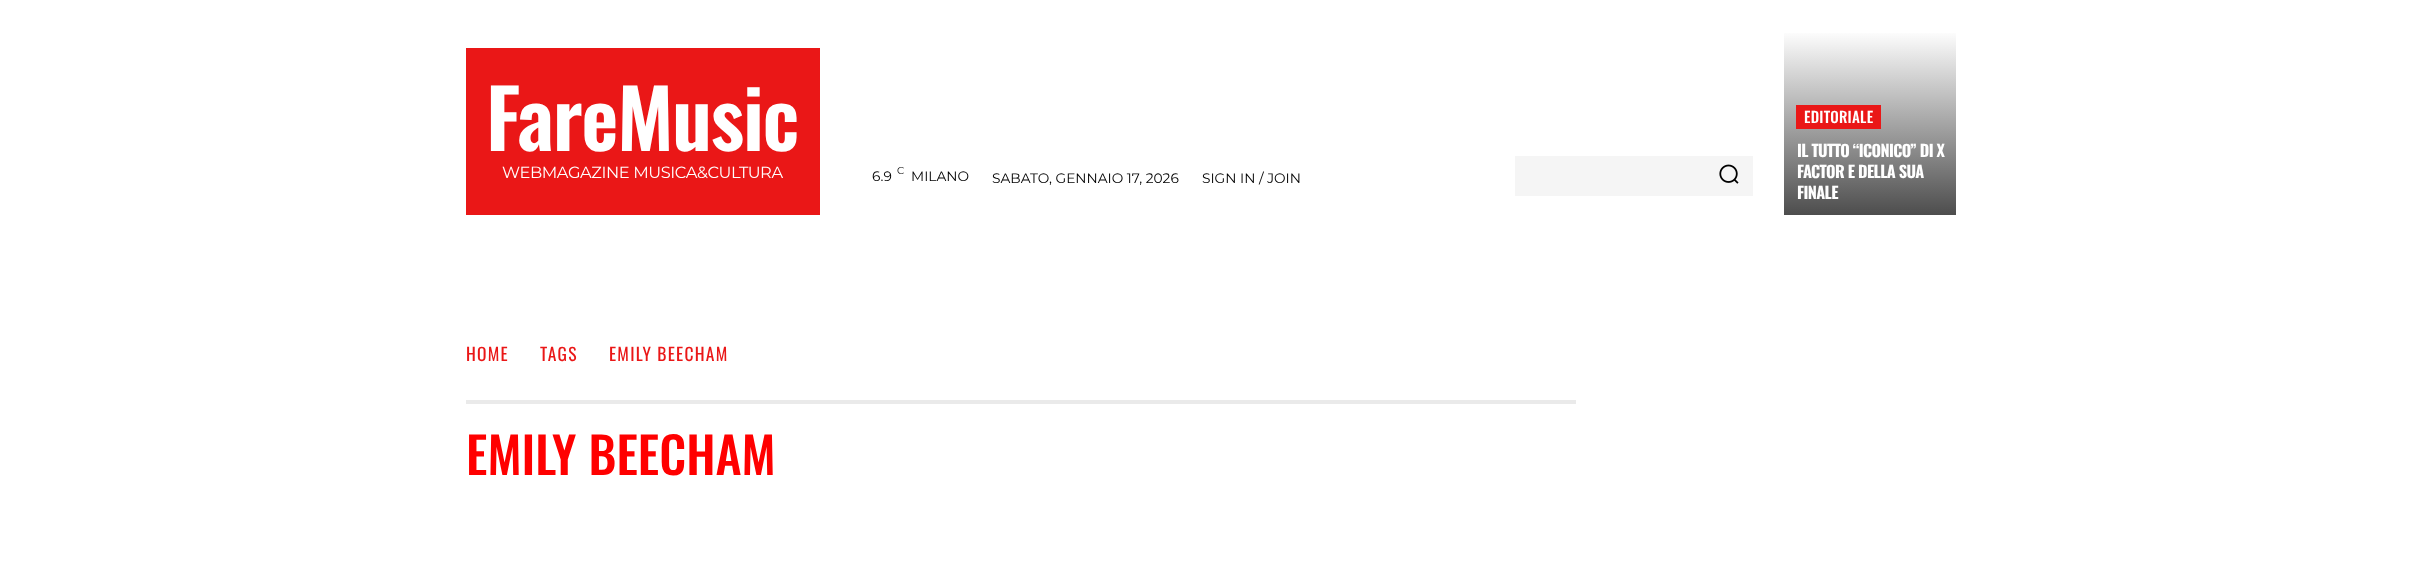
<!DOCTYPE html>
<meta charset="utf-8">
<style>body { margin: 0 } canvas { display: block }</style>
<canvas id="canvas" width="2422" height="586"></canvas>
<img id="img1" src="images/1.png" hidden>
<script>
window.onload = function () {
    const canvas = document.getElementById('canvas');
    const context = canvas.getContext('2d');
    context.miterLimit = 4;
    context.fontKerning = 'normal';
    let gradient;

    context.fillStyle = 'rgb(255, 255, 255)';
    context.fillRect(0, 0, 2422, 586);
    context.fillStyle = 'rgb(234, 23, 23)';
    context.fillRect(466, 48, 354, 167);
    context.fillStyle = 'rgb(245, 245, 245)';
    context.fillRect(1515, 156, 238, 40);
    context.drawImage(document.getElementById('img1'), 1719, 164, 20, 20);
    gradient = context.createLinearGradient(1870, 215, 1870, 30);
    gradient.addColorStop(0, 'rgb(77, 77, 77)');
    gradient.addColorStop(1, 'rgb(255, 255, 255)');
    context.fillStyle = gradient;
    context.fillRect(1784, 33, 172, 182);
    context.fillStyle = 'rgb(234, 23, 23)';
    context.fillRect(1796, 105, 85, 24);
    context.fillStyle = 'rgb(234, 234, 234)';
    context.fillRect(466, 400, 1110, 4);
    context.letterSpacing = '-1.25px';
    context.font = '600 81px Oswald';
    context.fillStyle = 'rgb(255, 255, 255)';
    context.fillText('FareMusic', 486, 151);
    context.letterSpacing = '-0.4px';
    context.font = '16.25px Montserrat';
    context.fillText('WEBMAGAZINE MUSICA&CULTURA', 502, 178);
    context.letterSpacing = '0px';
    context.font = '13.75px Montserrat';
    context.fillStyle = 'rgb(0, 0, 0)';
    context.fillText('6.9', 872, 181);
    context.font = '10px Montserrat';
    context.fillText('C', 897, 174);
    context.font = '13.75px Montserrat';
    context.fillText('MILANO', 911, 181);
    context.fillText('SABATO, GENNAIO 17, 2026', 992, 183);
    context.fillText('SIGN IN / JOIN', 1202, 183);
    context.letterSpacing = '0.25px';
    context.font = '500 15px Oswald';
    context.fillStyle = 'rgb(255, 255, 255)';
    context.fillText('EDITORIALE', 1804, 123);
    context.letterSpacing = '-0.6px';
    context.font = 'bold 16.25px Oswald';
    context.fillText('IL TUTTO “ICONICO” DI X', 1797, 157);
    context.fillText('FACTOR E DELLA SUA', 1797, 178);
    context.fillText('FINALE', 1797, 199);
    context.letterSpacing = '1.25px';
    context.font = '17.5px Oswald';
    context.fillStyle = 'rgb(234, 23, 23)';
    context.fillText('HOME', 466, 361);
    context.fillText('TAGS', 540, 361);
    context.fillText('EMILY BEECHAM', 609, 361);
    context.letterSpacing = '0px';
    context.font = '500 50px Oswald';
    context.fillStyle = 'rgb(255, 0, 0)';
    context.fillText('EMILY BEECHAM', 466, 475);
};
</script>
